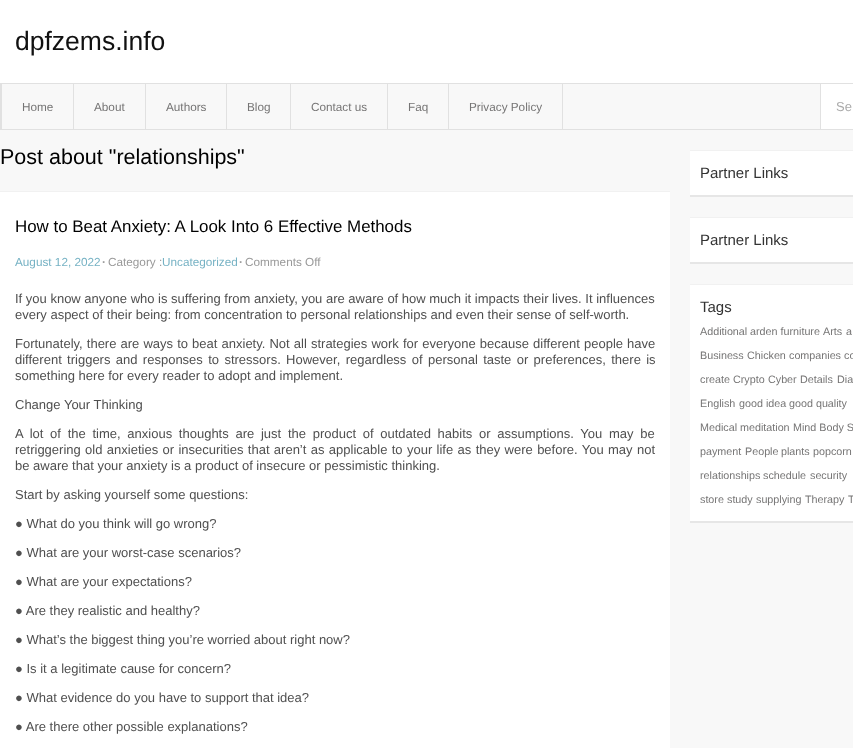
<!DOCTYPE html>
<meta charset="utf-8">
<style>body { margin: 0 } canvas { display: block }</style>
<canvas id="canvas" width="853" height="748"></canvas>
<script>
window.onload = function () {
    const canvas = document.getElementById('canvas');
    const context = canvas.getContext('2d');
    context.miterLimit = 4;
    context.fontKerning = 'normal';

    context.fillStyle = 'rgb(248, 248, 248)';
    context.fillRect(0, 0, 853, 748);
    context.fillStyle = 'rgb(255, 255, 255)';
    context.fillRect(0, 0, 853, 83);
    context.strokeStyle = 'rgb(225, 225, 225)';
    context.strokeRect(0.5, 83.5, 852, 46);
    context.fillStyle = 'rgb(225, 225, 225)';
    context.fillRect(1, 84, 1, 46);
    context.fillRect(73, 84, 1, 46);
    context.fillRect(145, 84, 1, 46);
    context.fillRect(226, 84, 1, 46);
    context.fillRect(290, 84, 1, 46);
    context.fillRect(387, 84, 1, 46);
    context.fillRect(448, 84, 1, 46);
    context.fillRect(562, 84, 1, 46);
    context.fillStyle = 'rgb(255, 255, 255)';
    context.fillRect(821, 84, 32, 45);
    context.fillStyle = 'rgb(225, 225, 225)';
    context.fillRect(820, 84, 1, 45);
    context.fillStyle = 'rgb(255, 255, 255)';
    context.fillRect(0, 192, 670, 556);
    context.fillStyle = 'rgb(241, 241, 241)';
    context.fillRect(0, 191, 670, 1);
    context.fillStyle = 'rgb(255, 255, 255)';
    context.fillRect(690, 151, 163, 44);
    context.fillStyle = 'rgb(241, 241, 241)';
    context.fillRect(690, 150, 163, 1);
    context.fillStyle = 'rgb(230, 230, 230)';
    context.fillRect(690, 195, 163, 2);
    context.fillStyle = 'rgb(255, 255, 255)';
    context.fillRect(690, 218, 163, 44);
    context.fillStyle = 'rgb(241, 241, 241)';
    context.fillRect(690, 217, 163, 1);
    context.fillStyle = 'rgb(230, 230, 230)';
    context.fillRect(690, 262, 163, 2);
    context.fillStyle = 'rgb(255, 255, 255)';
    context.fillRect(690, 285, 163, 236);
    context.fillStyle = 'rgb(241, 241, 241)';
    context.fillRect(690, 284, 163, 1);
    context.fillStyle = 'rgb(230, 230, 230)';
    context.fillRect(690, 521, 163, 2);
    context.font = '26.5px Liberation Sans';
    context.fillStyle = 'rgb(17, 17, 17)';
    context.fillText('dpfzems.info', 15, 50);
    context.font = '11.75px Liberation Sans';
    context.fillStyle = 'rgb(118, 117, 117)';
    context.fillText('Home', 22, 111);
    context.fillText('About', 94, 111);
    context.fillText('Authors', 166, 111);
    context.fillText('Blog', 247, 111);
    context.fillText('Contact us', 311, 111);
    context.fillText('Faq', 408, 111);
    context.fillText('Privacy Policy', 469, 111);
    context.font = '13px Liberation Sans';
    context.fillStyle = 'rgb(170, 170, 170)';
    context.fillText('Se', 836, 111);
    context.font = '21.5px Liberation Sans';
    context.fillStyle = 'rgb(0, 0, 0)';
    context.fillText('Post about "relationships"', 0, 164);
    context.font = '16.9px Liberation Sans';
    context.fillText('How to Beat Anxiety: A Look Into 6 Effective Methods', 15, 232);
    context.font = '11.75px Liberation Sans';
    context.fillStyle = 'rgb(118, 178, 196)';
    context.fillText('August 12, 2022', 15, 266);
    context.font = 'bold 11.75px Liberation Sans';
    context.fillStyle = 'rgb(153, 153, 153)';
    context.fillText('·', 102, 266);
    context.font = '11.75px Liberation Sans';
    context.fillText('Category :', 108, 266);
    context.fillStyle = 'rgb(118, 178, 196)';
    context.fillText('Uncategorized', 162, 266);
    context.font = 'bold 11.75px Liberation Sans';
    context.fillStyle = 'rgb(153, 153, 153)';
    context.fillText('·', 239, 266);
    context.font = '11.75px Liberation Sans';
    context.fillText('Comments Off', 245, 266);
    context.font = '13px Liberation Sans';
    context.fillStyle = 'rgb(79, 79, 79)';
    context.fillText('If you know anyone who is suffering from anxiety, you are aware of how much it impacts their lives. It influences', 15, 303);
    context.fillText('every aspect of their being: from concentration to personal relationships and even their sense of self-worth.', 15, 319);
    context.wordSpacing = '0.5px';
    context.fillText('Fortunately, there are ways to beat anxiety. Not all strategies work for everyone because different people have', 15, 348);
    context.wordSpacing = '1.75px';
    context.fillText('different triggers and responses to stressors. However, regardless of personal taste or preferences, there is', 15, 364);
    context.wordSpacing = '0px';
    context.fillText('something here for every reader to adopt and implement.', 15, 380);
    context.fillText('Change Your Thinking', 15, 409);
    context.wordSpacing = '3.1px';
    context.fillText('A lot of the time, anxious thoughts are just the product of outdated habits or assumptions. You may be', 15, 438);
    context.wordSpacing = '0.75px';
    context.fillText('retriggering old anxieties or insecurities that aren’t as applicable to your life as they were before. You may not', 15, 454);
    context.wordSpacing = '0px';
    context.fillText('be aware that your anxiety is a product of insecure or pessimistic thinking.', 15, 470);
    context.fillText('Start by asking yourself some questions:', 15, 499);
    context.fillText('● What do you think will go wrong?', 15, 528);
    context.fillText('● What are your worst-case scenarios?', 15, 557);
    context.fillText('● What are your expectations?', 15, 586);
    context.fillText('● Are they realistic and healthy?', 15, 615);
    context.fillText('● What’s the biggest thing you’re worried about right now?', 15, 644);
    context.fillText('● Is it a legitimate cause for concern?', 15, 673);
    context.fillText('● What evidence do you have to support that idea?', 15, 702);
    context.fillText('● Are there other possible explanations?', 15, 731);
    context.font = '15px Liberation Sans';
    context.fillStyle = 'rgb(51, 51, 51)';
    context.fillText('Partner Links', 700, 178);
    context.fillText('Partner Links', 700, 245);
    context.fillText('Tags', 700, 312);
    context.font = '10.75px Liberation Sans';
    context.fillStyle = 'rgb(118, 117, 117)';
    context.fillText('Additional', 700, 335);
    context.fillText('arden furniture', 750, 335);
    context.fillText('Arts', 823, 335);
    context.fillText('a', 846, 335);
    context.fillText('Business', 700, 359);
    context.fillText('Chicken', 747, 359);
    context.fillText('companies', 789, 359);
    context.fillText('co', 844, 359);
    context.fillText('create', 700, 383);
    context.fillText('Crypto', 733, 383);
    context.fillText('Cyber', 768, 383);
    context.fillText('Details', 800, 383);
    context.fillText('Dia', 837, 383);
    context.fillText('English', 700, 407);
    context.fillText('good idea', 739, 407);
    context.fillText('good quality', 789, 407);
    context.fillText('Medical', 700, 431);
    context.fillText('meditation', 740, 431);
    context.fillText('Mind Body S', 793, 431);
    context.fillText('payment', 700, 455);
    context.fillText('People', 745, 455);
    context.fillText('plants', 781, 455);
    context.fillText('popcorn', 813, 455);
    context.fillText('relationships', 700, 479);
    context.fillText('schedule', 763, 479);
    context.fillText('security', 810, 479);
    context.fillText('store', 700, 503);
    context.fillText('study', 727, 503);
    context.fillText('supplying', 756, 503);
    context.fillText('Therapy', 805, 503);
    context.fillText('T', 848, 503);
};
</script>
